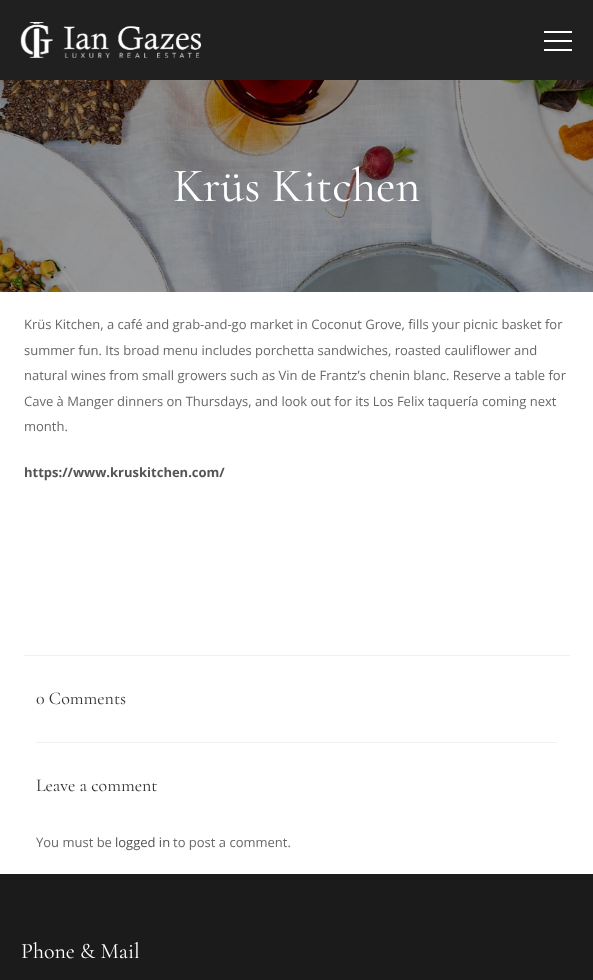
<!DOCTYPE html>
<meta charset="utf-8">
<style>body { margin: 0 } canvas { display: block }</style>
<canvas id="canvas" width="593" height="980"></canvas>
<img id="img1" src="images/1.png" hidden>
<img id="img2" src="images/2.png" hidden>
<script>
window.onload = function () {
    const canvas = document.getElementById('canvas');
    const context = canvas.getContext('2d');
    context.miterLimit = 4;
    context.fontKerning = 'normal';

    context.fillStyle = 'rgb(255, 255, 255)';
    context.fillRect(0, 0, 593, 980);
    context.fillStyle = 'rgb(32, 32, 32)';
    context.fillRect(0, 0, 593, 80);
    context.drawImage(document.getElementById('img1'), 20, 22, 182, 36);
    context.fillStyle = 'rgb(255, 255, 255)';
    context.fillRect(544, 40, 28, 2);
    context.fillRect(544, 31, 28, 2);
    context.fillRect(544, 49, 28, 2);
    context.drawImage(document.getElementById('img2'), 0, 80, 593, 212);
    context.fillStyle = 'rgb(240, 240, 240)';
    context.fillRect(24, 655, 546, 1);
    context.fillStyle = 'rgb(241, 241, 241)';
    context.fillRect(36, 742, 521, 1);
    context.fillStyle = 'rgb(27, 27, 27)';
    context.fillRect(0, 874, 593, 106);
    context.font = '48px Cormorant Garamond';
    context.fillStyle = 'rgb(255, 255, 255)';
    context.fillText('Krüs Kitchen', 173, 201);
    context.font = '13px Open Sans';
    context.fillStyle = 'rgb(104, 104, 104)';
    context.fillText('Krüs Kitchen, a café and grab-and-go market in Coconut Grove, fills your picnic basket for', 24, 329);
    context.fillText('summer fun. Its broad menu includes porchetta sandwiches, roasted cauliflower and', 24, 355);
    context.fillText('natural wines from small growers such as Vin de Frantz’s chenin blanc. Reserve a table for', 24, 380);
    context.fillText('Cave à Manger dinners on Thursdays, and look out for its Los Felix taquería coming next', 24, 406);
    context.fillText('month.', 24, 431);
    context.font = 'bold 13px Open Sans';
    context.fillStyle = 'rgb(84, 84, 84)';
    context.fillText('https://www.kruskitchen.com/', 24, 477);
    context.font = '18px Cormorant Garamond';
    context.fillStyle = 'rgb(48, 48, 48)';
    context.fillText('0 Comments', 36, 704);
    context.fillText('Leave a comment', 36, 791);
    context.font = '13px Open Sans';
    context.fillStyle = 'rgb(104, 104, 104)';
    context.fillText('You must be', 36, 847);
    context.fillStyle = 'rgb(84, 84, 84)';
    context.fillText('logged in', 115, 847);
    context.fillStyle = 'rgb(104, 104, 104)';
    context.fillText('to post a comment.', 173, 847);
    context.font = '22px Cormorant Garamond';
    context.fillStyle = 'rgb(255, 255, 255)';
    context.fillText('Phone & Mail', 21, 958);
};
</script>
